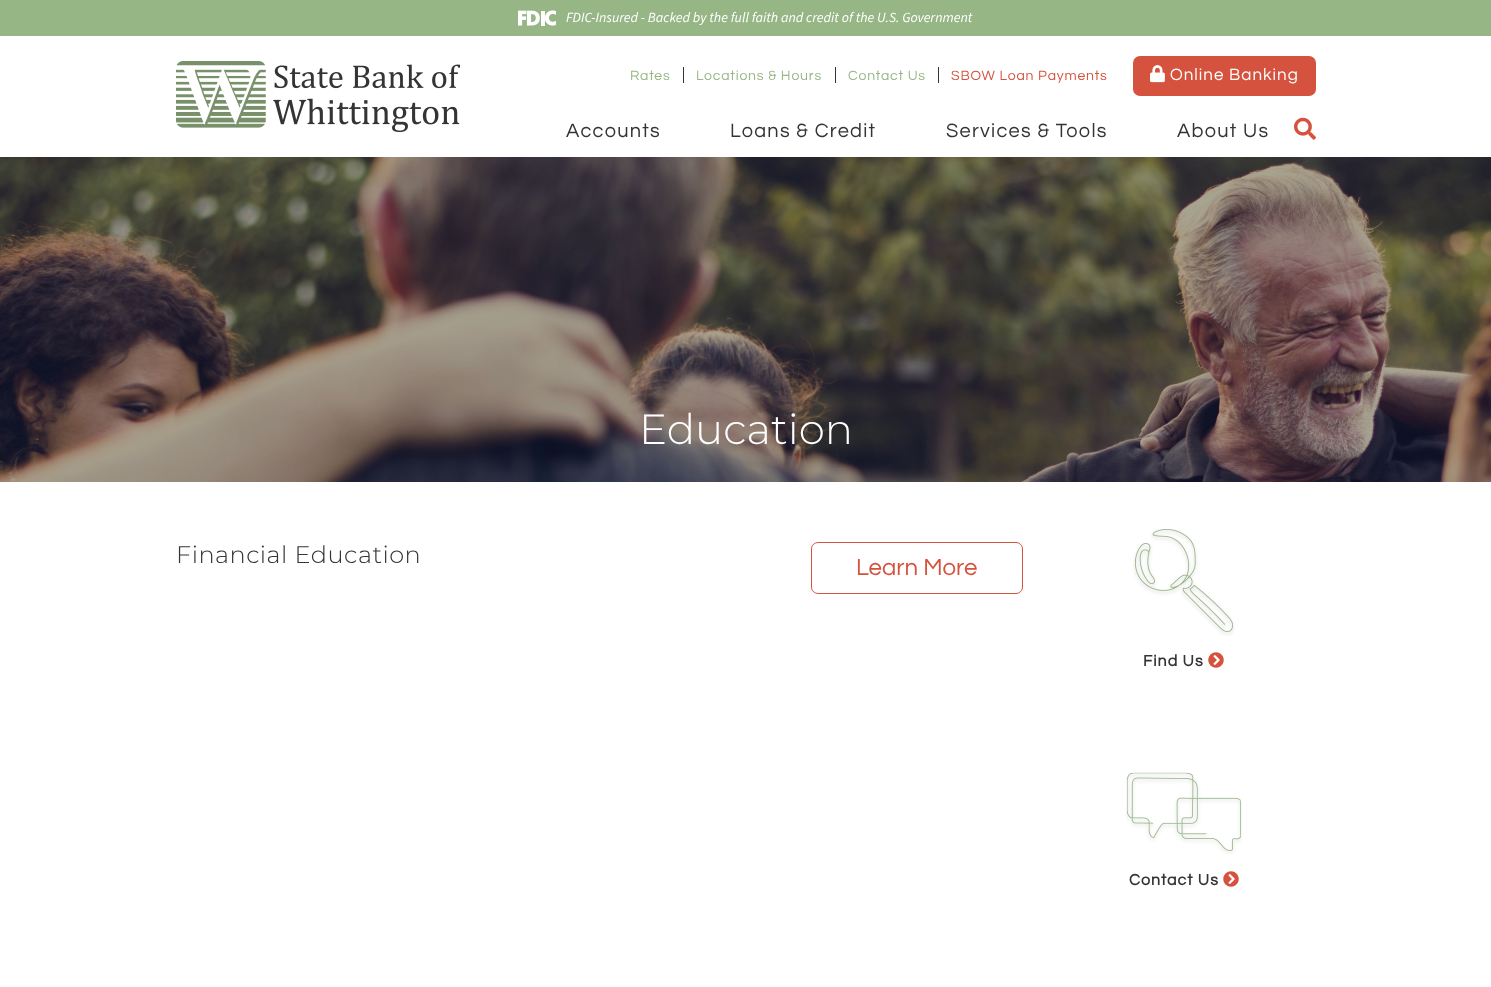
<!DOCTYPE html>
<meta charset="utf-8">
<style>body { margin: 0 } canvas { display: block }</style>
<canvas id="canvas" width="1491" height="987"></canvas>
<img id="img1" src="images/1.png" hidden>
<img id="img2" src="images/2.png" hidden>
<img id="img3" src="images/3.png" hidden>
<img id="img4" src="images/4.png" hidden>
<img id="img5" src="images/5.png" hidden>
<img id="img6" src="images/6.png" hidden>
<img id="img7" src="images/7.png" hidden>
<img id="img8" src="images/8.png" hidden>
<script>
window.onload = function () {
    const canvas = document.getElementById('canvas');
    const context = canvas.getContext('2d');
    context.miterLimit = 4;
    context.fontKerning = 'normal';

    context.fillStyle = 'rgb(255, 255, 255)';
    context.fillRect(0, 0, 1491, 987);
    context.fillStyle = 'rgb(151, 182, 133)';
    context.fillRect(0, 0, 1491, 36);
    context.drawImage(document.getElementById('img1'), 518, 10, 38, 16);
    context.drawImage(document.getElementById('img2'), 176, 61, 284, 71);
    context.fillStyle = 'rgb(52, 52, 52)';
    context.fillRect(683, 67, 1, 16);
    context.fillRect(835, 67, 1, 16);
    context.fillRect(938, 67, 1, 16);
    context.fillStyle = 'rgb(213, 83, 62)';
    context.beginPath();
    context.roundRect(1133, 56, 183, 40, 7);
    context.fill();
    context.drawImage(document.getElementById('img3'), 1150, 65, 15, 18);
    context.drawImage(document.getElementById('img4'), 1294, 117, 22, 23);
    context.drawImage(document.getElementById('img5'), 0, 157, 1491, 325);
    context.beginPath();
    context.roundRect(811.5, 542.5, 211, 51, 6.5);
    context.strokeStyle = 'rgb(213, 83, 62)';
    context.stroke();
    context.drawImage(document.getElementById('img6'), 1133, 529, 102, 107);
    context.drawImage(document.getElementById('img7'), 1208, 652, 16, 16);
    context.drawImage(document.getElementById('img8'), 1126, 772, 116, 82);
    context.drawImage(document.getElementById('img7'), 1223, 871, 16, 16);
    context.font = 'italic 200 14px "Source Sans 3"';
    context.fillStyle = 'rgb(255, 255, 255)';
    context.fillText('FDIC-Insured - Backed by the full faith and credit of the U.S. Government', 566, 22);
    context.letterSpacing = '0.8px';
    context.font = '14px Questrial';
    context.fillStyle = 'rgb(151, 182, 133)';
    context.fillText('Rates', 630, 80);
    context.fillText('Locations & Hours', 696, 80);
    context.fillText('Contact Us', 848, 80);
    context.fillStyle = 'rgb(213, 83, 62)';
    context.fillText('SBOW Loan Payments', 951, 80);
    context.letterSpacing = '1px';
    context.font = '17px Questrial';
    context.fillStyle = 'rgb(255, 255, 255)';
    context.fillText('Online Banking', 1170, 80);
    context.letterSpacing = '1.25px';
    context.font = '20px Questrial';
    context.fillStyle = 'rgb(52, 52, 52)';
    context.fillText('Accounts', 566, 137);
    context.fillText('Loans & Credit', 730, 137);
    context.fillText('Services & Tools', 946, 137);
    context.fillText('About Us', 1177, 137);
    context.letterSpacing = '0px';
    context.font = '300 42px Montserrat';
    context.fillStyle = 'rgb(255, 255, 255)';
    context.fillText('Education', 639, 444);
    context.letterSpacing = '0.5px';
    context.font = '300 24px Montserrat';
    context.fillStyle = 'rgb(52, 52, 52)';
    context.fillText('Financial Education', 176, 563);
    context.letterSpacing = '0px';
    context.font = '24px Questrial';
    context.fillStyle = 'rgb(213, 83, 62)';
    context.fillText('Learn More', 856, 575);
    context.letterSpacing = '1px';
    context.font = 'bold 16px Questrial';
    context.fillStyle = 'rgb(52, 52, 52)';
    context.fillText('Find Us', 1143, 666);
    context.fillText('Contact Us', 1129, 885);
};
</script>
